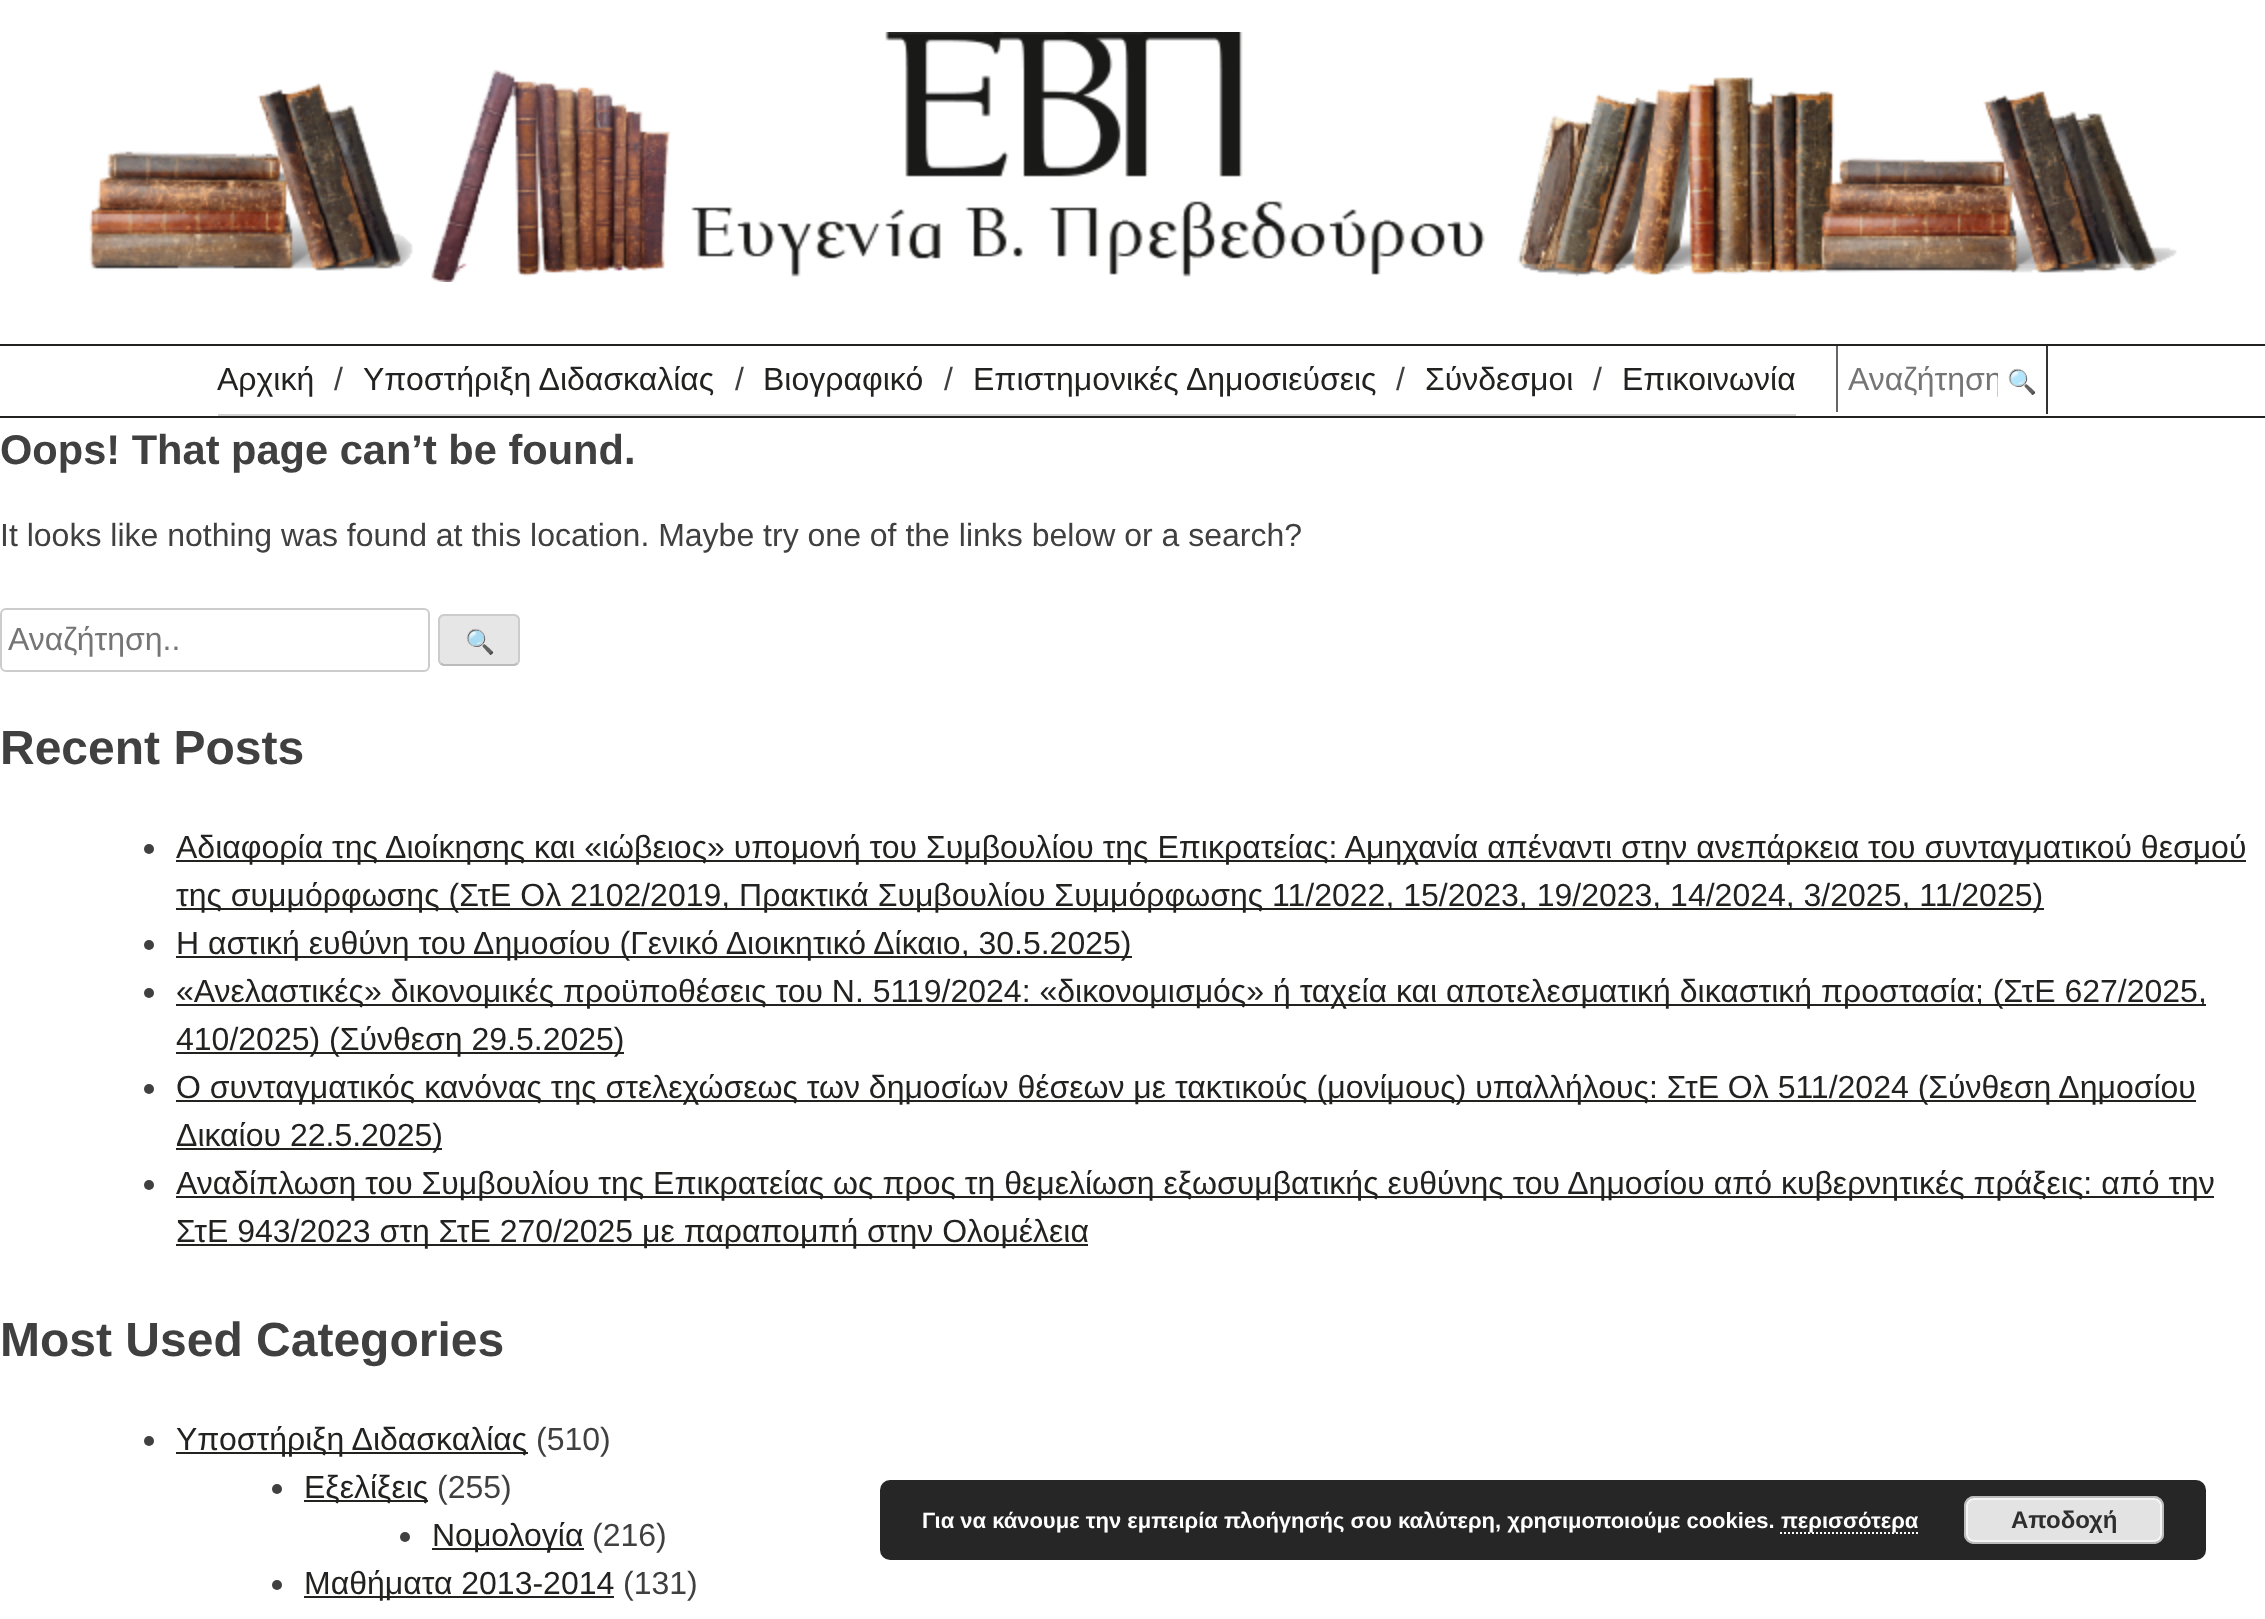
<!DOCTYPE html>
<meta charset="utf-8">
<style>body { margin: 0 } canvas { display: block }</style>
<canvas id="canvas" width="2265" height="1619"></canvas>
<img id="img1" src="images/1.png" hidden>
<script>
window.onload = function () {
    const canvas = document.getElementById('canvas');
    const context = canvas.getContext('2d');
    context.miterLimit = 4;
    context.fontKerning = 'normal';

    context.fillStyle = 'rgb(255, 255, 255)';
    context.fillRect(0, 0, 2265, 1619);
    context.drawImage(document.getElementById('img1'), 89, 32, 2088, 250);
    context.fillStyle = 'rgb(34, 34, 33)';
    context.fillRect(0, 344, 2265, 2);
    context.fillRect(0, 416, 2265, 2);
    context.fillStyle = 'rgb(211, 211, 211)';
    context.fillRect(218, 414, 1578, 2);
    context.fillStyle = 'rgb(102, 102, 102)';
    context.fillRect(1836, 346, 2, 66);
    context.fillStyle = 'rgb(51, 51, 51)';
    context.fillRect(2046, 346, 2, 68);
    context.beginPath();
    context.roundRect(1, 609, 428, 62, 5);
    context.strokeStyle = 'rgb(204, 204, 204)';
    context.lineWidth = 2;
    context.stroke();
    context.fillStyle = 'rgb(230, 230, 230)';
    context.beginPath();
    context.roundRect(438, 614, 82, 52, 6);
    context.fill();
    context.beginPath();
    context.moveTo(517.5, 663.5);
    context.lineTo(514.5, 665);
    context.lineTo(443.5, 665);
    context.lineTo(440.5, 663.5);
    context.strokeStyle = 'rgb(187, 187, 187)';
    context.stroke();
    context.beginPath();
    context.moveTo(440.5, 663.5);
    context.bezierCurveTo(439.5, 662.5, 439, 661.5, 439, 660);
    context.lineTo(439, 620);
    context.bezierCurveTo(439, 618.5, 439.5, 617.5, 440.5, 616.5);
    context.bezierCurveTo(441.5, 615.5, 442.5, 615, 444, 615);
    context.lineTo(514, 615);
    context.bezierCurveTo(515.5, 615, 516.5, 615.5, 517.5, 616.5);
    context.bezierCurveTo(518.5, 617.5, 519, 618.5, 519, 620);
    context.lineTo(519, 660);
    context.bezierCurveTo(519, 661.5, 518.5, 662.5, 517.5, 663.5);
    context.strokeStyle = 'rgb(204, 204, 204)';
    context.stroke();
    context.fillStyle = 'rgb(64, 64, 64)';
    context.beginPath();
    context.arc(149, 849, 5, 0, 2 * Math.PI);
    context.fill();
    context.fillStyle = 'rgb(34, 34, 33)';
    context.fillRect(176, 860, 2070, 2);
    context.fillRect(176, 908, 1868, 2);
    context.fillStyle = 'rgb(64, 64, 64)';
    context.beginPath();
    context.arc(149, 945, 5, 0, 2 * Math.PI);
    context.fill();
    context.fillStyle = 'rgb(34, 34, 33)';
    context.fillRect(176, 956, 956, 2);
    context.fillStyle = 'rgb(64, 64, 64)';
    context.beginPath();
    context.arc(149, 993, 5, 0, 2 * Math.PI);
    context.fill();
    context.fillStyle = 'rgb(34, 34, 33)';
    context.fillRect(176, 1004, 2030, 2);
    context.fillRect(176, 1052, 448, 2);
    context.fillStyle = 'rgb(64, 64, 64)';
    context.beginPath();
    context.arc(149, 1089, 5, 0, 2 * Math.PI);
    context.fill();
    context.fillStyle = 'rgb(34, 34, 33)';
    context.fillRect(176, 1100, 2020, 2);
    context.fillRect(176, 1148, 266, 2);
    context.fillStyle = 'rgb(64, 64, 64)';
    context.beginPath();
    context.arc(149, 1185, 5, 0, 2 * Math.PI);
    context.fill();
    context.fillStyle = 'rgb(34, 34, 33)';
    context.fillRect(176, 1196, 2038, 2);
    context.fillRect(176, 1244, 912, 2);
    context.fillStyle = 'rgb(64, 64, 64)';
    context.beginPath();
    context.arc(149, 1441, 5, 0, 2 * Math.PI);
    context.fill();
    context.fillStyle = 'rgb(34, 34, 33)';
    context.fillRect(176, 1452, 352, 2);
    context.fillStyle = 'rgb(64, 64, 64)';
    context.beginPath();
    context.arc(277, 1489, 5, 0, 2 * Math.PI);
    context.fill();
    context.fillStyle = 'rgb(34, 34, 33)';
    context.fillRect(304, 1500, 124, 2);
    context.fillStyle = 'rgb(64, 64, 64)';
    context.beginPath();
    context.arc(405, 1537, 5, 0, 2 * Math.PI);
    context.fill();
    context.fillStyle = 'rgb(34, 34, 33)';
    context.fillRect(432, 1548, 152, 2);
    context.fillStyle = 'rgb(64, 64, 64)';
    context.beginPath();
    context.arc(277, 1585, 5, 0, 2 * Math.PI);
    context.fill();
    context.fillStyle = 'rgb(34, 34, 33)';
    context.fillRect(304, 1596, 310, 2);
    context.fillStyle = 'rgb(38, 38, 38)';
    context.beginPath();
    context.roundRect(880, 1480, 1326, 80, 10);
    context.fill();
    context.beginPath();
    context.moveTo(1780, 1533);
    context.lineTo(1918, 1533);
    context.strokeStyle = 'rgb(255, 255, 255)';
    context.setLineDash([2, 2]);
    context.stroke();
    context.fillStyle = 'rgb(227, 227, 227)';
    context.beginPath();
    context.roundRect(1964, 1496, 200, 48, 10);
    context.fill();
    context.beginPath();
    context.roundRect(1967, 1499, 194, 42, 7);
    context.strokeStyle = 'rgb(246, 246, 246)';
    context.setLineDash([]);
    context.stroke();
    context.beginPath();
    context.roundRect(1965, 1497, 198, 46, 9);
    context.strokeStyle = 'rgb(187, 187, 187)';
    context.stroke();
    context.font = '32px Liberation Sans';
    context.fillStyle = 'rgb(34, 34, 33)';
    context.fillText('Αρχική', 217, 390);
    context.fillStyle = 'rgb(64, 64, 64)';
    context.fillText('/', 334, 390);
    context.fillStyle = 'rgb(34, 34, 33)';
    context.fillText('Υποστήριξη Διδασκαλίας', 363, 390);
    context.fillStyle = 'rgb(64, 64, 64)';
    context.fillText('/', 735, 390);
    context.fillStyle = 'rgb(34, 34, 33)';
    context.fillText('Βιογραφικό', 763, 390);
    context.fillStyle = 'rgb(64, 64, 64)';
    context.fillText('/', 944, 390);
    context.fillStyle = 'rgb(34, 34, 33)';
    context.fillText('Επιστημονικές Δημοσιεύσεις', 973, 390);
    context.fillStyle = 'rgb(64, 64, 64)';
    context.fillText('/', 1396, 390);
    context.fillStyle = 'rgb(34, 34, 33)';
    context.fillText('Σύνδεσμοι', 1425, 390);
    context.fillStyle = 'rgb(64, 64, 64)';
    context.fillText('/', 1593, 390);
    context.fillStyle = 'rgb(34, 34, 33)';
    context.fillText('Επικοινωνία', 1622, 390);
    context.save();
    context.beginPath();
    context.rect(1848, 362, 150, 36);
    context.clip();
    context.fillStyle = 'rgb(117, 117, 117)';
    context.fillText('Αναζήτηση', 1848, 390);
    context.restore();
    context.font = '24px Noto Color Emoji';
    context.fillStyle = 'rgb(46, 46, 46)';
    context.fillText('🔍', 2007, 390);
    context.font = 'bold 41.6px Liberation Sans';
    context.fillStyle = 'rgb(64, 64, 64)';
    context.fillText('Oops! That page can’t be found.', 0, 464);
    context.font = '32px Liberation Sans';
    context.fillText('It looks like nothing was found at this location. Maybe try one of the links below or a search?', 0, 546);
    context.fillStyle = 'rgb(117, 117, 117)';
    context.fillText('Αναζήτηση..', 8, 650);
    context.font = '24px Noto Color Emoji';
    context.fillStyle = 'rgb(46, 46, 46)';
    context.fillText('🔍', 465, 650);
    context.font = 'bold 48px Liberation Sans';
    context.fillStyle = 'rgb(64, 64, 64)';
    context.fillText('Recent Posts', 0, 764);
    context.font = '32px Liberation Sans';
    context.fillStyle = 'rgb(34, 34, 33)';
    context.fillText('Aδιαφορία της Διοίκησης και «ιώβειος» υπομονή του Συμβουλίου της Επικρατείας: Αμηχανία απέναντι στην ανεπάρκεια του συνταγματικού θεσμού', 176, 858);
    context.fillText('της συμμόρφωσης (ΣτΕ Ολ 2102/2019, Πρακτικά Συμβουλίου Συμμόρφωσης 11/2022, 15/2023, 19/2023, 14/2024, 3/2025, 11/2025)', 176, 906);
    context.fillText('H αστική ευθύνη του Δημοσίου (Γενικό Διοικητικό Δίκαιο, 30.5.2025)', 176, 954);
    context.fillText('«Ανελαστικές» δικονομικές προϋποθέσεις του Ν. 5119/2024: «δικονομισμός» ή ταχεία και αποτελεσματική δικαστική προστασία; (ΣτΕ 627/2025,', 176, 1002);
    context.fillText('410/2025) (Σύνθεση 29.5.2025)', 176, 1050);
    context.fillText('Ο συνταγματικός κανόνας της στελεχώσεως των δημοσίων θέσεων με τακτικούς (μονίμους) υπαλλήλους: ΣτΕ Ολ 511/2024 (Σύνθεση Δημοσίου', 176, 1098);
    context.fillText('Δικαίου 22.5.2025)', 176, 1146);
    context.fillText('Αναδίπλωση του Συμβουλίου της Επικρατείας ως προς τη θεμελίωση εξωσυμβατικής ευθύνης του Δημοσίου από κυβερνητικές πράξεις: από την', 176, 1194);
    context.fillText('ΣτΕ 943/2023 στη ΣτΕ 270/2025 με παραπομπή στην Ολομέλεια', 176, 1242);
    context.font = 'bold 48px Liberation Sans';
    context.fillStyle = 'rgb(64, 64, 64)';
    context.fillText('Most Used Categories', 0, 1356);
    context.font = '32px Liberation Sans';
    context.fillStyle = 'rgb(34, 34, 33)';
    context.fillText('Υποστήριξη Διδασκαλίας', 176, 1450);
    context.fillStyle = 'rgb(64, 64, 64)';
    context.fillText('(510)', 536, 1450);
    context.fillStyle = 'rgb(34, 34, 33)';
    context.fillText('Εξελίξεις', 304, 1498);
    context.fillStyle = 'rgb(64, 64, 64)';
    context.fillText('(255)', 437, 1498);
    context.fillStyle = 'rgb(34, 34, 33)';
    context.fillText('Νομολογία', 432, 1546);
    context.fillStyle = 'rgb(64, 64, 64)';
    context.fillText('(216)', 592, 1546);
    context.fillStyle = 'rgb(34, 34, 33)';
    context.fillText('Μαθήματα 2013-2014', 304, 1594);
    context.fillStyle = 'rgb(64, 64, 64)';
    context.fillText('(131)', 623, 1594);
    context.font = 'bold 22px Liberation Sans';
    context.fillStyle = 'rgb(255, 255, 255)';
    context.fillText('Για να κάνουμε την εμπειρία πλοήγησής σου καλύτερη, χρησιμοποιούμε cookies.', 922, 1528);
    context.fillText('περισσότερα', 1781, 1528);
    context.font = 'bold 24px Liberation Sans';
    context.fillStyle = 'rgb(46, 46, 46)';
    context.fillText('Αποδοχή', 2011, 1528);
};
</script>
